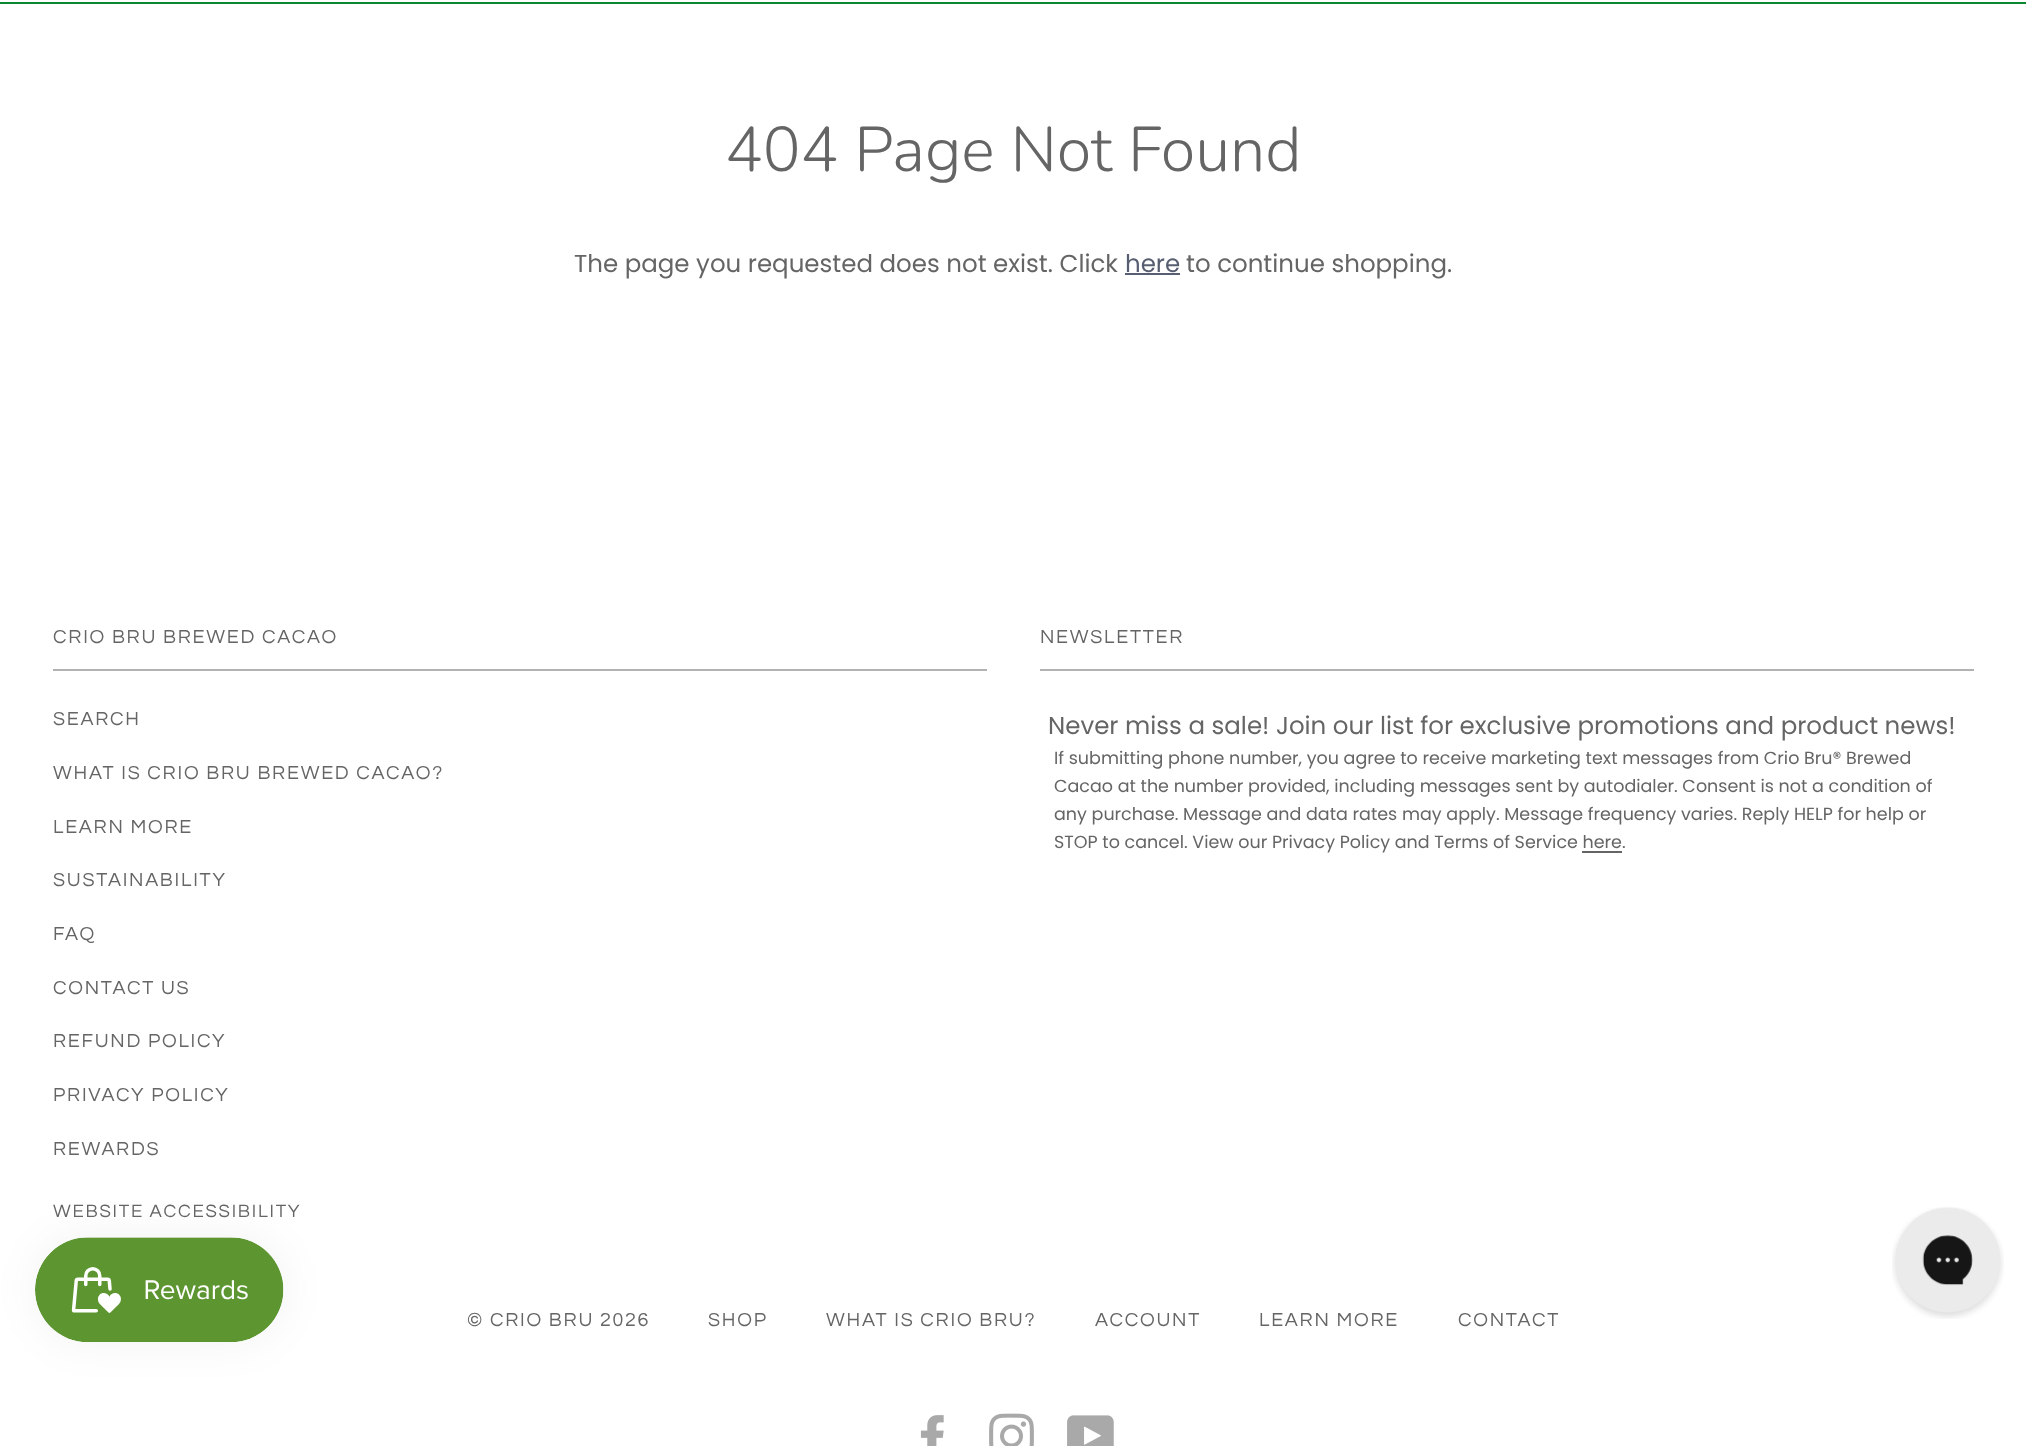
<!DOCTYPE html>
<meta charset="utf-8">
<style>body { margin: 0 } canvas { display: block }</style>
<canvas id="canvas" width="2026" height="1446"></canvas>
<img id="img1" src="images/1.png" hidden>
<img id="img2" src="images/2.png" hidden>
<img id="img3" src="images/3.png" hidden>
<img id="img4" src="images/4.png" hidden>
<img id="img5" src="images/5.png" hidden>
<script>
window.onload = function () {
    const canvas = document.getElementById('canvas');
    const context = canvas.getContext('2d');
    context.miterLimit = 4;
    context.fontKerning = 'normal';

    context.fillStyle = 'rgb(255, 255, 255)';
    context.fillRect(0, 0, 2026, 1446);
    context.fillStyle = 'rgb(10, 135, 47)';
    context.fillRect(0, 2, 2026, 2);
    context.fillStyle = 'rgb(88, 94, 113)';
    context.fillRect(1125, 273, 55, 2);
    context.fillStyle = 'rgb(178, 178, 178)';
    context.fillRect(53, 669, 934, 2);
    context.fillRect(1040, 669, 934, 2);
    context.fillStyle = 'rgb(101, 101, 101)';
    context.fillRect(1582, 851, 40, 2);
    context.drawImage(document.getElementById('img1'), 920, 1415, 24, 31);
    context.drawImage(document.getElementById('img2'), 989, 1413, 45, 33);
    context.drawImage(document.getElementById('img3'), 1067, 1415, 47, 31);
    context.fillStyle = 'rgba(0, 0, 0, 0.05)';
    context.filter = 'blur(22px)';
    context.beginPath();
    context.roundRect(35, 1237, 249, 105, 52.5);
    context.fill();
    context.filter = 'none';
    context.drawImage(document.getElementById('img4'), 35, 1237, 249, 105);
    context.drawImage(document.getElementById('img5'), 1892, 1207, 112, 112);
    context.font = '300 63px Nunito';
    context.fillStyle = 'rgb(101, 101, 101)';
    context.fillText('404 Page Not Found', 725, 171);
    context.font = '24.5px Poppins';
    context.fillText('The page you requested does not exist. Click', 574, 272);
    context.fillStyle = 'rgb(88, 94, 113)';
    context.fillText('here', 1125, 272);
    context.fillStyle = 'rgb(101, 101, 101)';
    context.fillText('to continue shopping.', 1186, 272);
    context.letterSpacing = '1.75px';
    context.font = '19.6px Questrial';
    context.fillText('CRIO BRU BREWED CACAO', 53, 643);
    context.fillText('SEARCH', 53, 725);
    context.fillText('WHAT IS CRIO BRU BREWED CACAO?', 53, 779);
    context.fillText('LEARN MORE', 53, 833);
    context.fillText('SUSTAINABILITY', 53, 886);
    context.fillText('FAQ', 53, 940);
    context.fillText('CONTACT US', 53, 994);
    context.fillText('REFUND POLICY', 53, 1047);
    context.fillText('PRIVACY POLICY', 53, 1101);
    context.fillText('REWARDS', 53, 1155);
    context.font = '18.5px Questrial';
    context.fillText('WEBSITE ACCESSIBILITY', 53, 1217);
    context.font = '19.6px Questrial';
    context.fillText('NEWSLETTER', 1040, 643);
    context.letterSpacing = '0px';
    context.font = '24.5px Poppins';
    context.fillText('Never miss a sale! Join our list for exclusive promotions and product news!', 1048, 734);
    context.font = '17.5px Poppins';
    context.fillText('If submitting phone number, you agree to receive marketing text messages from Crio Bru® Brewed', 1054, 764);
    context.fillText('Cacao at the number provided, including messages sent by autodialer. Consent is not a condition of', 1054, 792);
    context.fillText('any purchase. Message and data rates may apply. Message frequency varies. Reply HELP for help or', 1054, 820);
    context.fillText('STOP to cancel. View our Privacy Policy and Terms of Service here.', 1054, 848);
    context.letterSpacing = '1.75px';
    context.font = '19.6px Questrial';
    context.fillText('© CRIO BRU 2026', 467, 1326);
    context.fillText('SHOP', 708, 1326);
    context.fillText('WHAT IS CRIO BRU?', 826, 1326);
    context.fillText('ACCOUNT', 1095, 1326);
    context.fillText('LEARN MORE', 1259, 1326);
    context.fillText('CONTACT', 1458, 1326);
};
</script>
